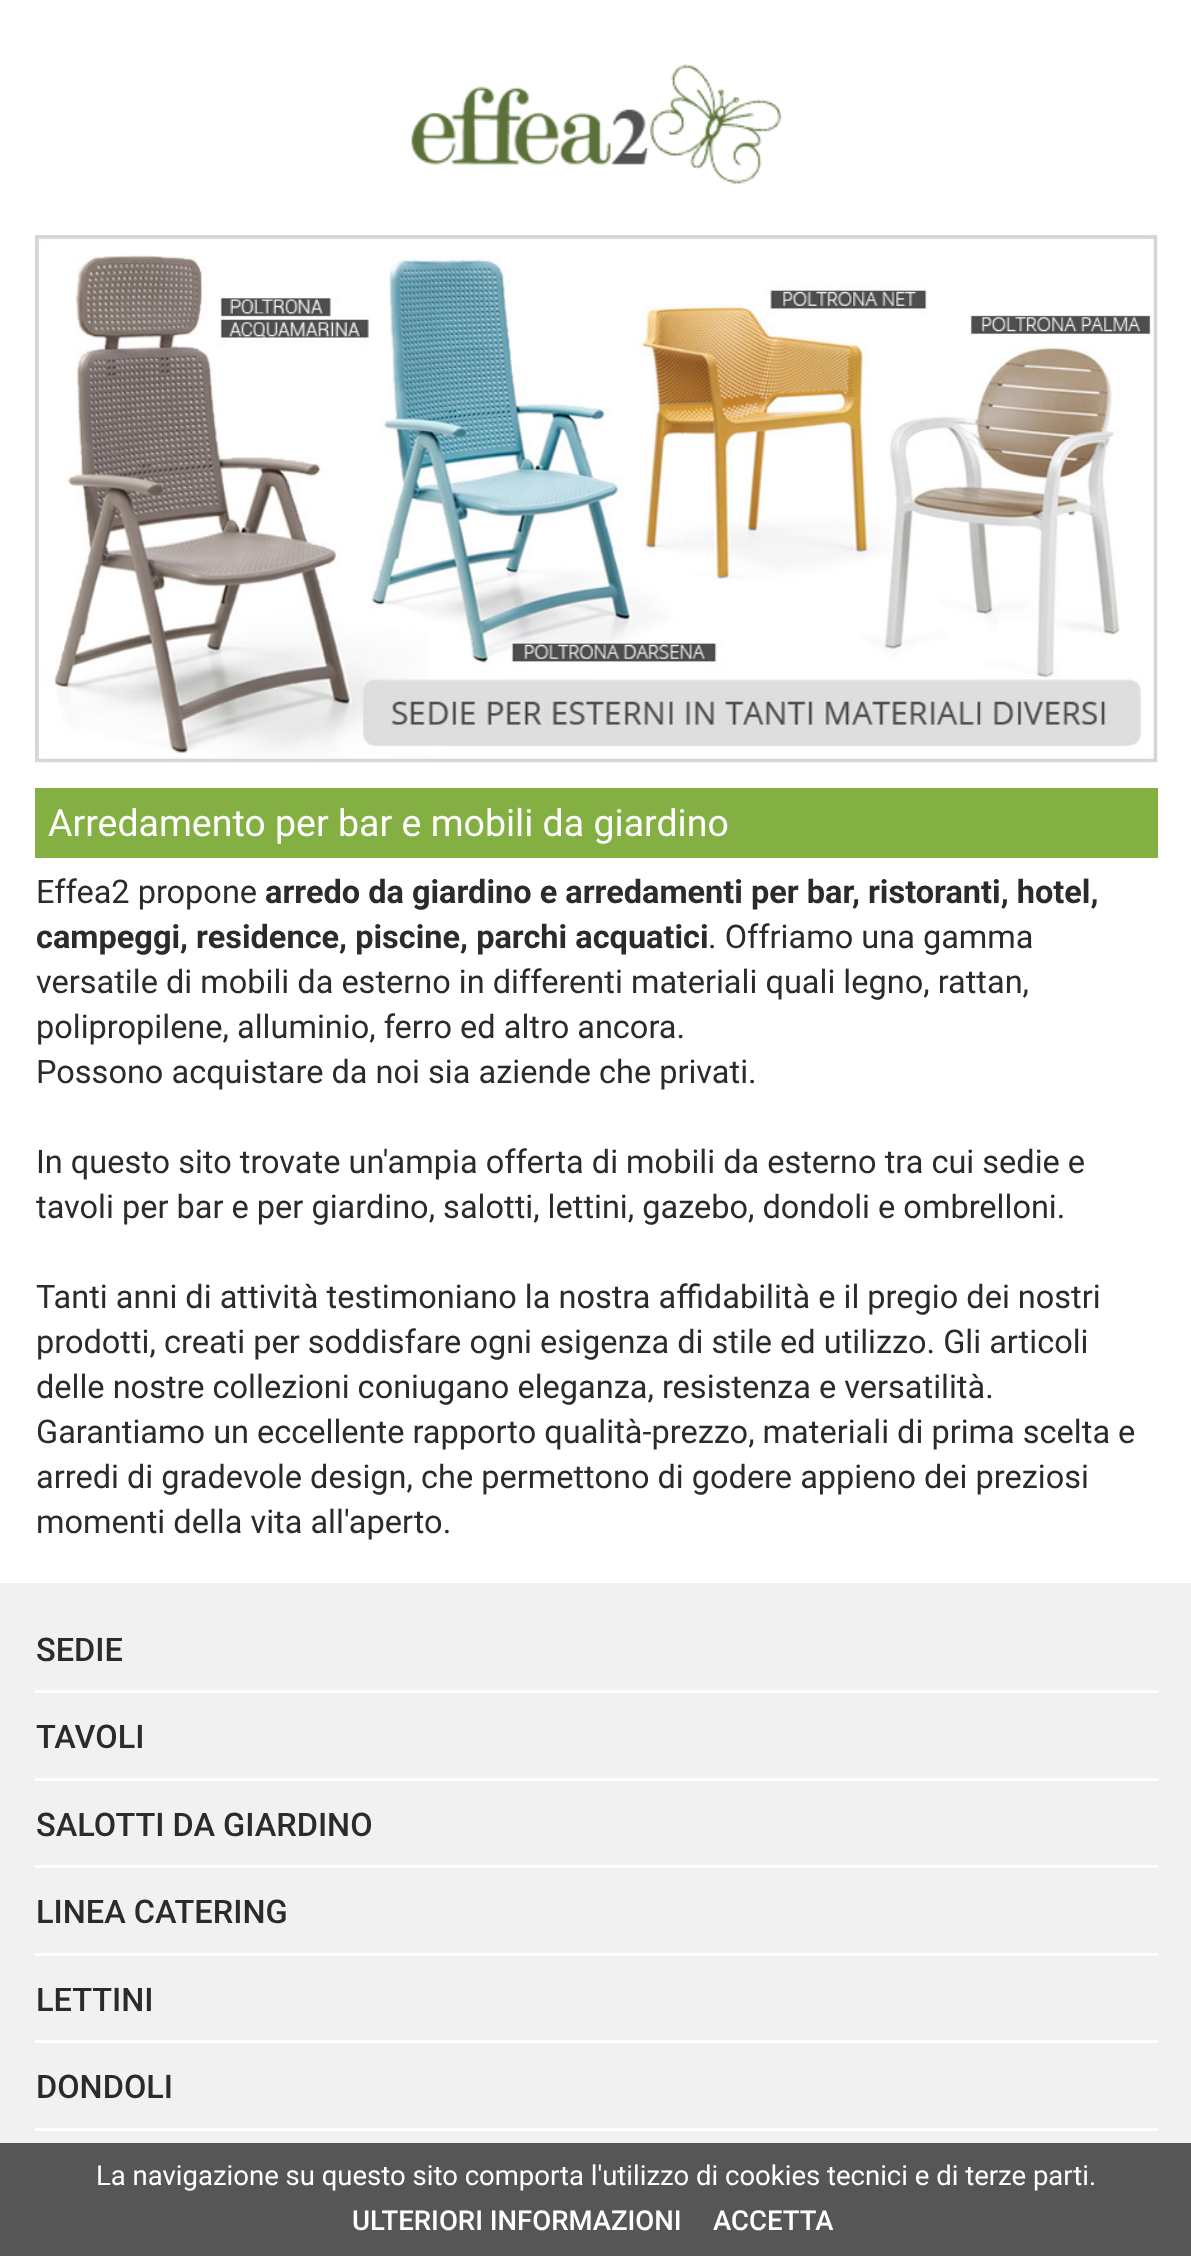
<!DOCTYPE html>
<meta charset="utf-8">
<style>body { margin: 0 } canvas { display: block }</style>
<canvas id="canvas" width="1191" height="2256"></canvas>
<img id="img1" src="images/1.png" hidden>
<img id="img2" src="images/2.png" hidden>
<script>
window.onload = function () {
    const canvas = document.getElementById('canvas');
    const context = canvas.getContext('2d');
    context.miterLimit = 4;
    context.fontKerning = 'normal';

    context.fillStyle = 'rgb(255, 255, 255)';
    context.fillRect(0, 0, 1191, 2256);
    context.drawImage(document.getElementById('img1'), 411, 64, 371, 120);
    context.drawImage(document.getElementById('img2'), 35, 235, 1123, 528);
    context.fillStyle = 'rgb(132, 175, 66)';
    context.fillRect(35, 788, 1123, 70);
    context.fillStyle = 'rgb(241, 241, 241)';
    context.fillRect(0, 1583, 1191, 560);
    context.fillStyle = 'rgb(255, 255, 255)';
    context.fillRect(35, 1690, 1123, 3);
    context.fillRect(35, 1778, 1123, 3);
    context.fillRect(35, 1865, 1123, 3);
    context.fillRect(35, 1953, 1123, 3);
    context.fillRect(35, 2040, 1123, 3);
    context.fillRect(35, 2128, 1123, 3);
    context.fillStyle = 'rgb(86, 86, 86)';
    context.fillRect(0, 2143, 1191, 113);
    context.font = '37.5px Roboto';
    context.fillStyle = 'rgb(255, 255, 255)';
    context.fillText('Arredamento per bar e mobili da giardino', 48, 836);
    context.font = '32.5px Roboto';
    context.fillStyle = 'rgb(43, 43, 43)';
    context.fillText('Effea2 propone', 36, 903);
    context.font = 'bold 32.5px Roboto';
    context.fillText('arredo da giardino e arredamenti per bar, ristoranti, hotel,', 265, 903);
    context.fillText('campeggi, residence, piscine, parchi acquatici', 36, 948);
    context.font = '32.5px Roboto';
    context.fillText('. Offriamo una gamma', 708, 948);
    context.fillText('versatile di mobili da esterno in differenti materiali quali legno, rattan,', 36, 993);
    context.fillText('polipropilene, alluminio, ferro ed altro ancora.', 36, 1038);
    context.fillText('Possono acquistare da noi sia aziende che privati.', 36, 1083);
    context.fillText('In questo sito trovate un\'ampia offerta di mobili da esterno tra cui sedie e', 36, 1173);
    context.fillText('tavoli per bar e per giardino, salotti, lettini, gazebo, dondoli e ombrelloni.', 36, 1218);
    context.fillText('Tanti anni di attività testimoniano la nostra affidabilità e il pregio dei nostri', 36, 1308);
    context.fillText('prodotti, creati per soddisfare ogni esigenza di stile ed utilizzo. Gli articoli', 36, 1353);
    context.fillText('delle nostre collezioni coniugano eleganza, resistenza e versatilità.', 36, 1398);
    context.fillText('Garantiamo un eccellente rapporto qualità-prezzo, materiali di prima scelta e', 36, 1443);
    context.fillText('arredi di gradevole design, che permettono di godere appieno dei preziosi', 36, 1488);
    context.fillText('momenti della vita all\'aperto.', 36, 1533);
    context.font = '500 32.5px Roboto';
    context.fillText('SEDIE', 36, 1661);
    context.fillText('TAVOLI', 36, 1748);
    context.fillText('SALOTTI DA GIARDINO', 36, 1836);
    context.fillText('LINEA CATERING', 36, 1923);
    context.fillText('LETTINI', 36, 2011);
    context.fillText('DONDOLI', 36, 2098);
    context.font = '27.5px Roboto';
    context.fillStyle = 'rgb(255, 255, 255)';
    context.fillText('La navigazione su questo sito comporta l\'utilizzo di cookies tecnici e di terze parti.', 96, 2185);
    context.font = '500 27.5px Roboto';
    context.fillText('ULTERIORI INFORMAZIONI', 352, 2230);
    context.fillText('ACCETTA', 713, 2230);
};
</script>
